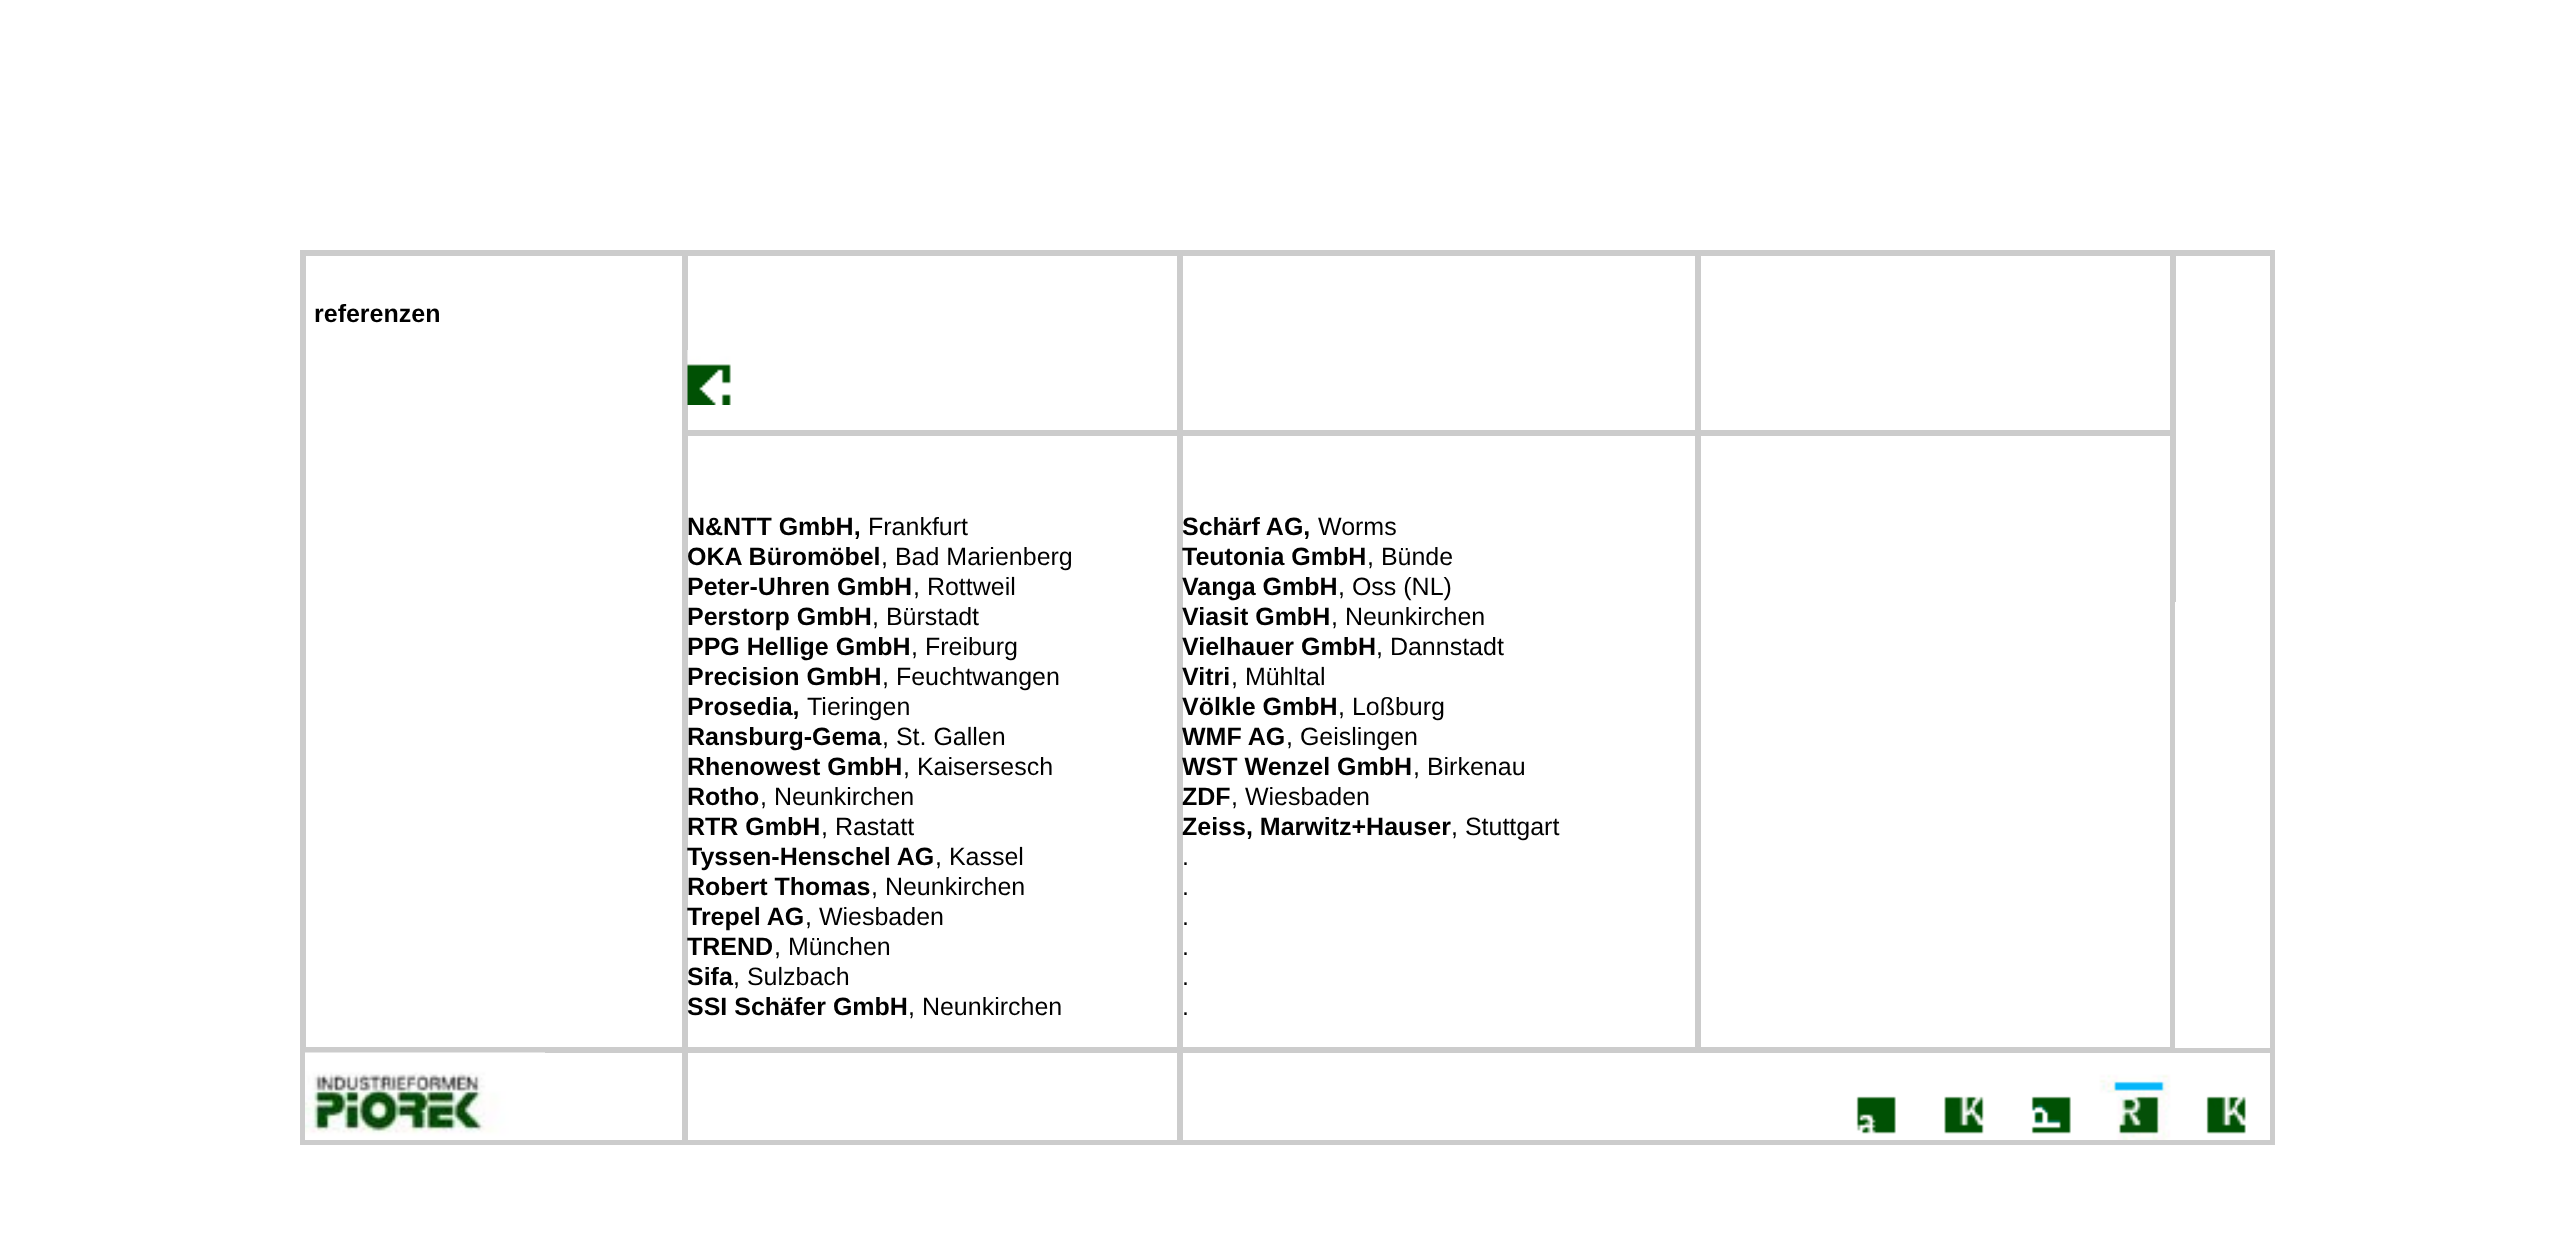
<!DOCTYPE html>
<meta charset="utf-8">
<style>body { margin: 0 } canvas { display: block }</style>
<canvas id="canvas" width="2574" height="1256"></canvas>
<img id="img1" src="images/1.png" hidden>
<img id="img2" src="images/2.png" hidden>
<img id="img3" src="images/3.png" hidden>
<img id="img4" src="images/4.png" hidden>
<img id="img5" src="images/5.png" hidden>
<img id="img6" src="images/6.png" hidden>
<img id="img7" src="images/7.png" hidden>
<script>
window.onload = function () {
    const canvas = document.getElementById('canvas');
    const context = canvas.getContext('2d');
    context.miterLimit = 4;
    context.fontKerning = 'normal';

    context.fillStyle = 'rgb(255, 255, 255)';
    context.fillRect(0, 0, 2574, 1256);
    context.strokeStyle = 'rgb(204, 204, 204)';
    context.lineWidth = 3;
    context.strokeRect(301.5, 251.5, 1972, 892);
    context.strokeRect(304.5, 254.5, 379, 794);
    context.strokeRect(686.5, 254.5, 492, 177);
    context.drawImage(document.getElementById('img1'), 687, 350, 44, 55);
    context.strokeRect(1181.5, 254.5, 515, 177);
    context.strokeRect(1699.5, 254.5, 472, 177);
    context.strokeRect(2174.5, 254.5, 97, 794);
    context.fillRect(2175, 602, 95, 446);
    context.strokeRect(686.5, 434.5, 492, 614);
    context.strokeRect(1181.5, 434.5, 515, 614);
    context.strokeRect(1699.5, 434.5, 472, 614);
    context.strokeRect(304.5, 1051.5, 379, 90);
    context.drawImage(document.getElementById('img2'), 305, 1052, 240, 88);
    context.strokeRect(686.5, 1051.5, 492, 90);
    context.strokeRect(1181.5, 1051.5, 1090, 90);
    context.drawImage(document.getElementById('img3'), 1856, 1096, 40, 38);
    context.drawImage(document.getElementById('img4'), 1944, 1096, 40, 38);
    context.drawImage(document.getElementById('img5'), 2031, 1096, 40, 38);
    context.drawImage(document.getElementById('img6'), 2099, 1074, 72, 66);
    context.drawImage(document.getElementById('img7'), 2206, 1096, 40, 38);
    context.font = 'bold 25px Liberation Sans';
    context.fillStyle = 'rgb(0, 0, 0)';
    context.fillText('referenzen', 314, 322);
    context.fillText('N&NTT GmbH,', 687, 535);
    context.font = '25px Liberation Sans';
    context.fillText('Frankfurt', 868, 535);
    context.font = 'bold 25px Liberation Sans';
    context.fillText('OKA Büromöbel', 687, 565);
    context.font = '25px Liberation Sans';
    context.fillText(', Bad Marienberg', 881, 565);
    context.font = 'bold 25px Liberation Sans';
    context.fillText('Peter-Uhren GmbH', 687, 595);
    context.font = '25px Liberation Sans';
    context.fillText(', Rottweil', 913, 595);
    context.font = 'bold 25px Liberation Sans';
    context.fillText('Perstorp GmbH', 687, 625);
    context.font = '25px Liberation Sans';
    context.fillText(', Bürstadt', 872, 625);
    context.font = 'bold 25px Liberation Sans';
    context.fillText('PPG Hellige GmbH', 687, 655);
    context.font = '25px Liberation Sans';
    context.fillText(', Freiburg', 911, 655);
    context.font = 'bold 25px Liberation Sans';
    context.fillText('Precision GmbH', 687, 685);
    context.font = '25px Liberation Sans';
    context.fillText(', Feuchtwangen', 882, 685);
    context.font = 'bold 25px Liberation Sans';
    context.fillText('Prosedia,', 687, 715);
    context.font = '25px Liberation Sans';
    context.fillText('Tieringen', 807, 715);
    context.font = 'bold 25px Liberation Sans';
    context.fillText('Ransburg-Gema', 687, 745);
    context.font = '25px Liberation Sans';
    context.fillText(', St. Gallen', 882, 745);
    context.font = 'bold 25px Liberation Sans';
    context.fillText('Rhenowest GmbH', 687, 775);
    context.font = '25px Liberation Sans';
    context.fillText(', Kaisersesch', 903, 775);
    context.font = 'bold 25px Liberation Sans';
    context.fillText('Rotho', 687, 805);
    context.font = '25px Liberation Sans';
    context.fillText(', Neunkirchen', 760, 805);
    context.font = 'bold 25px Liberation Sans';
    context.fillText('RTR GmbH', 687, 835);
    context.font = '25px Liberation Sans';
    context.fillText(', Rastatt', 821, 835);
    context.font = 'bold 25px Liberation Sans';
    context.fillText('Tyssen-Henschel AG', 687, 865);
    context.font = '25px Liberation Sans';
    context.fillText(', Kassel', 935, 865);
    context.font = 'bold 25px Liberation Sans';
    context.fillText('Robert Thomas', 687, 895);
    context.font = '25px Liberation Sans';
    context.fillText(', Neunkirchen', 871, 895);
    context.font = 'bold 25px Liberation Sans';
    context.fillText('Trepel AG', 687, 925);
    context.font = '25px Liberation Sans';
    context.fillText(', Wiesbaden', 805, 925);
    context.font = 'bold 25px Liberation Sans';
    context.fillText('TREND', 687, 955);
    context.font = '25px Liberation Sans';
    context.fillText(', München', 774, 955);
    context.font = 'bold 25px Liberation Sans';
    context.fillText('Sifa', 687, 985);
    context.font = '25px Liberation Sans';
    context.fillText(', Sulzbach', 733, 985);
    context.font = 'bold 25px Liberation Sans';
    context.fillText('SSI Schäfer GmbH', 687, 1015);
    context.font = '25px Liberation Sans';
    context.fillText(', Neunkirchen', 908, 1015);
    context.font = 'bold 25px Liberation Sans';
    context.fillText('Schärf AG,', 1182, 535);
    context.font = '25px Liberation Sans';
    context.fillText('Worms', 1318, 535);
    context.font = 'bold 25px Liberation Sans';
    context.fillText('Teutonia GmbH', 1182, 565);
    context.font = '25px Liberation Sans';
    context.fillText(', Bünde', 1367, 565);
    context.font = 'bold 25px Liberation Sans';
    context.fillText('Vanga GmbH', 1182, 595);
    context.font = '25px Liberation Sans';
    context.fillText(', Oss (NL)', 1338, 595);
    context.font = 'bold 25px Liberation Sans';
    context.fillText('Viasit GmbH', 1182, 625);
    context.font = '25px Liberation Sans';
    context.fillText(', Neunkirchen', 1331, 625);
    context.font = 'bold 25px Liberation Sans';
    context.fillText('Vielhauer GmbH', 1182, 655);
    context.font = '25px Liberation Sans';
    context.fillText(', Dannstadt', 1376, 655);
    context.font = 'bold 25px Liberation Sans';
    context.fillText('Vitri', 1182, 685);
    context.font = '25px Liberation Sans';
    context.fillText(', Mühltal', 1231, 685);
    context.font = 'bold 25px Liberation Sans';
    context.fillText('Völkle GmbH', 1182, 715);
    context.font = '25px Liberation Sans';
    context.fillText(', Loßburg', 1338, 715);
    context.font = 'bold 25px Liberation Sans';
    context.fillText('WMF AG', 1182, 745);
    context.font = '25px Liberation Sans';
    context.fillText(', Geislingen', 1286, 745);
    context.font = 'bold 25px Liberation Sans';
    context.fillText('WST Wenzel GmbH', 1182, 775);
    context.font = '25px Liberation Sans';
    context.fillText(', Birkenau', 1413, 775);
    context.font = 'bold 25px Liberation Sans';
    context.fillText('ZDF', 1182, 805);
    context.font = '25px Liberation Sans';
    context.fillText(', Wiesbaden', 1231, 805);
    context.font = 'bold 25px Liberation Sans';
    context.fillText('Zeiss, Marwitz+Hauser', 1182, 835);
    context.font = '25px Liberation Sans';
    context.fillText(', Stuttgart', 1451, 835);
    context.fillText('.', 1182, 865);
    context.fillText('.', 1182, 895);
    context.fillText('.', 1182, 925);
    context.fillText('.', 1182, 955);
    context.fillText('.', 1182, 985);
    context.fillText('.', 1182, 1015);
};
</script>
